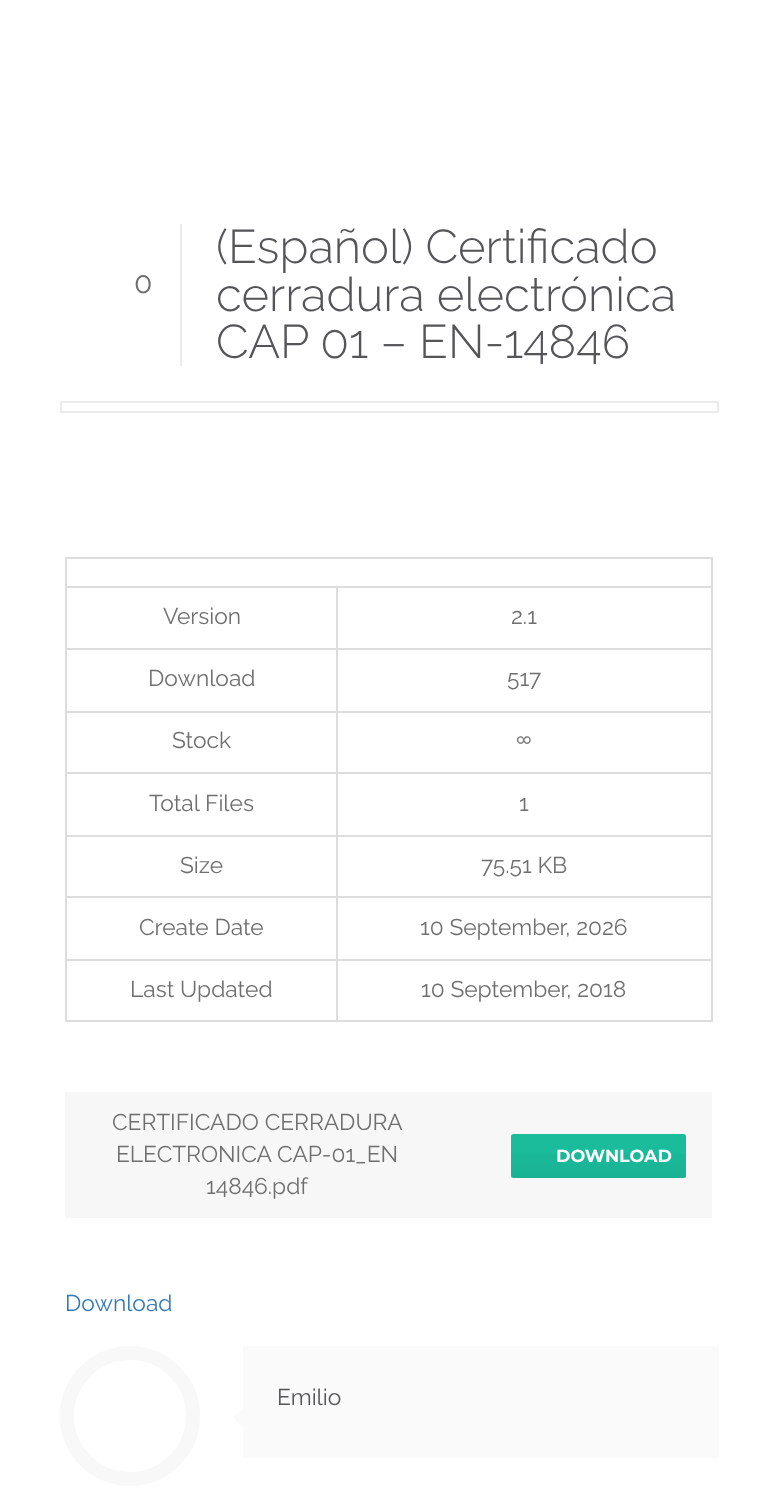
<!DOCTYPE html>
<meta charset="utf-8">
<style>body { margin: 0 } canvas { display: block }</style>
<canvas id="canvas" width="776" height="1490"></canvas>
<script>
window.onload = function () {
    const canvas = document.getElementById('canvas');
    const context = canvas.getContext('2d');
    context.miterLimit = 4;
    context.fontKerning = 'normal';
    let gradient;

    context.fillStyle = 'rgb(255, 255, 255)';
    context.fillRect(0, 0, 776, 1490);
    context.fillStyle = 'rgb(235, 235, 235)';
    context.fillRect(180, 224, 2, 142);
    context.strokeStyle = 'rgb(235, 235, 235)';
    context.lineWidth = 2;
    context.strokeRect(61, 402, 657, 10);
    context.fillStyle = 'rgb(221, 221, 221)';
    context.fillRect(65, 557, 647, 2);
    context.fillRect(711, 557, 2, 465);
    context.fillRect(65, 1020, 647, 2);
    context.fillRect(65, 557, 2, 465);
    context.fillRect(336, 586, 376, 2);
    context.fillRect(336, 648, 376, 2);
    context.fillRect(336, 711, 376, 2);
    context.fillRect(336, 772, 376, 2);
    context.fillRect(336, 835, 376, 2);
    context.fillRect(336, 896, 376, 2);
    context.fillRect(336, 959, 376, 2);
    context.fillRect(336, 959, 2, 63);
    context.fillRect(65, 959, 273, 2);
    context.fillRect(336, 896, 2, 65);
    context.fillRect(65, 896, 273, 2);
    context.fillRect(336, 835, 2, 63);
    context.fillRect(65, 835, 273, 2);
    context.fillRect(336, 772, 2, 65);
    context.fillRect(65, 772, 273, 2);
    context.fillRect(336, 711, 2, 63);
    context.fillRect(65, 711, 273, 2);
    context.fillRect(336, 648, 2, 64);
    context.fillRect(65, 648, 273, 2);
    context.fillRect(336, 586, 2, 63);
    context.fillRect(65, 586, 273, 2);
    context.fillStyle = 'rgb(247, 247, 247)';
    context.fillRect(65, 1092, 647, 126);
    context.fillStyle = 'rgb(26, 188, 156)';
    context.beginPath();
    context.roundRect(511, 1134, 175, 44, 2.5);
    context.fill();
    gradient = context.createLinearGradient(599, 1134, 599, 1178);
    gradient.addColorStop(0, 'rgba(0, 0, 0, 0)');
    gradient.addColorStop(1, 'rgba(0, 0, 0, 0.05)');
    context.fillStyle = gradient;
    context.fillRect(511, 1153, 175, 25);
    context.beginPath();
    context.arc(130, 1416, 63, 0, 2 * Math.PI);
    context.strokeStyle = 'rgb(248, 248, 248)';
    context.lineWidth = 14;
    context.stroke();
    context.fillStyle = 'rgb(250, 250, 250)';
    context.fillRect(243, 1346, 476, 112);
    context.beginPath();
    context.moveTo(243, 1407);
    context.lineTo(243, 1428);
    context.lineTo(233, 1417.5);
    context.closePath();
    context.fill();
    context.font = '30px Raleway';
    context.fillStyle = 'rgb(112, 111, 111)';
    context.fillText('0', 134, 293);
    context.font = '300 47.25px Raleway';
    context.fillStyle = 'rgb(85, 84, 88)';
    context.fillText('(Español) Certificado', 216, 263);
    context.fillText('cerradura electrónica', 216, 311);
    context.fillText('CAP 01 – EN-14846', 216, 358);
    context.font = '22.75px Raleway';
    context.fillStyle = 'rgb(112, 111, 111)';
    context.fillText('Version', 163, 624);
    context.fillText('2.1', 511, 624);
    context.fillText('Download', 148, 686);
    context.fillText('517', 507, 686);
    context.fillText('Stock', 172, 748);
    context.fillText('∞', 516, 748);
    context.fillText('Total Files', 149, 811);
    context.fillText('1', 519, 811);
    context.fillText('Size', 180, 873);
    context.fillText('75.51 KB', 481, 873);
    context.fillText('Create Date', 139, 935);
    context.fillText('10 September, 2026', 420, 935);
    context.fillText('Last Updated', 130, 997);
    context.fillText('10 September, 2018', 421, 997);
    context.fillText('CERTIFICADO CERRADURA', 112, 1130);
    context.fillText('ELECTRONICA CAP-01_EN', 116, 1162);
    context.fillText('14846.pdf', 206, 1194);
    context.font = 'bold 17.5px Montserrat';
    context.fillStyle = 'rgb(255, 255, 255)';
    context.fillText('DOWNLOAD', 556, 1162);
    context.font = '22.75px Raleway';
    context.fillStyle = 'rgb(51, 122, 183)';
    context.fillText('Download', 65, 1311);
    context.fillStyle = 'rgb(85, 84, 88)';
    context.fillText('Emilio', 277, 1405);
};
</script>
